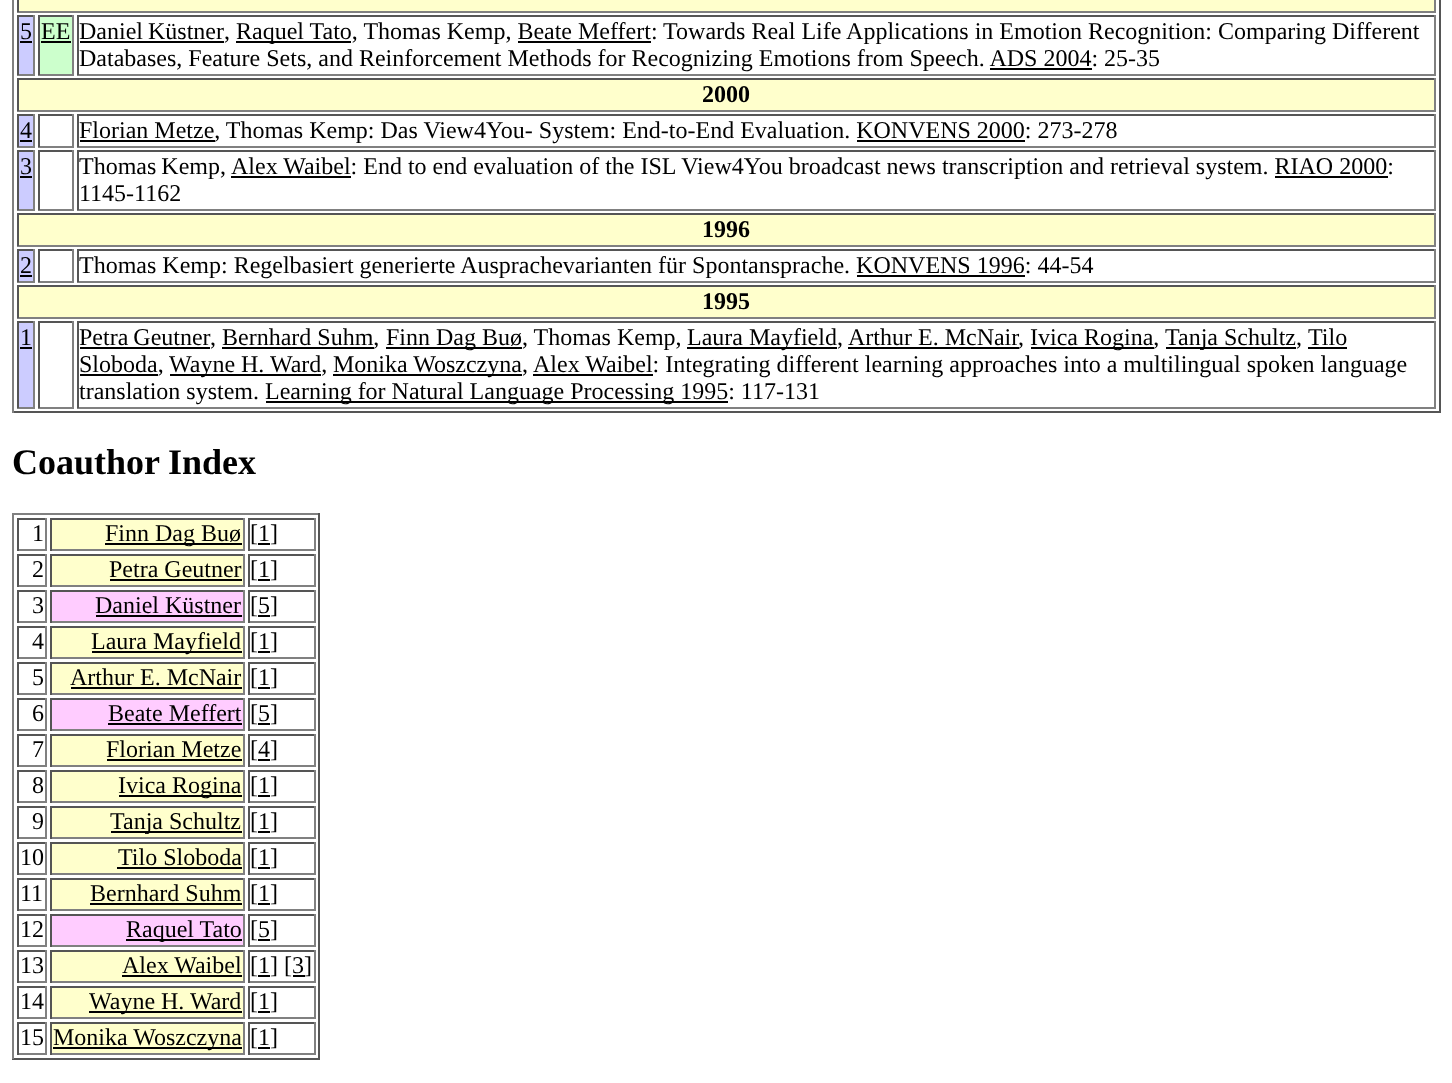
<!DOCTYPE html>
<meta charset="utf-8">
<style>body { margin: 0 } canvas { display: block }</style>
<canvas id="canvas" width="1452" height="1083"></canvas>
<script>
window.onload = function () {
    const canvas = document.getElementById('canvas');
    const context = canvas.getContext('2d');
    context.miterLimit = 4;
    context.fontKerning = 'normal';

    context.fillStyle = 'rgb(255, 255, 255)';
    context.fillRect(0, 0, 1452, 1083);
    context.fillStyle = 'rgb(85, 85, 85)';
    context.fillRect(1439, 0, 2, 413);
    context.fillRect(12, 411, 1428, 2);
    context.fillStyle = 'rgb(128, 128, 128)';
    context.fillRect(12, 0, 2, 413);
    context.fillStyle = 'rgb(255, 255, 204)';
    context.fillRect(19, 0, 1415, 11);
    context.fillStyle = 'rgb(128, 128, 128)';
    context.fillRect(1434, 0, 2, 12);
    context.fillRect(17, 11, 1419, 2);
    context.fillStyle = 'rgb(85, 85, 85)';
    context.fillRect(17, 0, 2, 12);
    context.fillStyle = 'rgb(204, 204, 255)';
    context.fillRect(19, 17, 14, 57);
    context.fillStyle = 'rgb(85, 85, 85)';
    context.fillRect(17, 15, 18, 2);
    context.fillStyle = 'rgb(128, 128, 128)';
    context.fillRect(33, 15, 2, 60);
    context.fillRect(17, 74, 18, 2);
    context.fillStyle = 'rgb(85, 85, 85)';
    context.fillRect(17, 15, 2, 60);
    context.fillStyle = 'rgb(0, 0, 0)';
    context.fillRect(20, 41, 12, 2);
    context.fillStyle = 'rgb(204, 255, 204)';
    context.fillRect(40, 17, 32, 57);
    context.fillStyle = 'rgb(85, 85, 85)';
    context.fillRect(38, 15, 36, 2);
    context.fillStyle = 'rgb(128, 128, 128)';
    context.fillRect(72, 15, 2, 60);
    context.fillRect(38, 74, 36, 2);
    context.fillStyle = 'rgb(85, 85, 85)';
    context.fillRect(38, 15, 2, 60);
    context.fillStyle = 'rgb(0, 0, 0)';
    context.fillRect(41, 41, 30, 2);
    context.fillStyle = 'rgb(85, 85, 85)';
    context.fillRect(77, 15, 1359, 2);
    context.fillStyle = 'rgb(128, 128, 128)';
    context.fillRect(1434, 15, 2, 60);
    context.fillRect(77, 74, 1359, 2);
    context.fillStyle = 'rgb(85, 85, 85)';
    context.fillRect(77, 15, 2, 60);
    context.fillStyle = 'rgb(0, 0, 0)';
    context.fillRect(80, 41, 144, 2);
    context.fillRect(236, 41, 115, 2);
    context.fillRect(518, 41, 133, 2);
    context.fillRect(990, 68, 102, 2);
    context.fillStyle = 'rgb(255, 255, 204)';
    context.fillRect(19, 80, 1415, 30);
    context.fillStyle = 'rgb(85, 85, 85)';
    context.fillRect(17, 78, 1419, 2);
    context.fillStyle = 'rgb(128, 128, 128)';
    context.fillRect(1434, 78, 2, 33);
    context.fillRect(17, 110, 1419, 2);
    context.fillStyle = 'rgb(85, 85, 85)';
    context.fillRect(17, 78, 2, 33);
    context.fillStyle = 'rgb(204, 204, 255)';
    context.fillRect(19, 116, 14, 30);
    context.fillStyle = 'rgb(85, 85, 85)';
    context.fillRect(17, 114, 18, 2);
    context.fillStyle = 'rgb(128, 128, 128)';
    context.fillRect(33, 114, 2, 33);
    context.fillRect(17, 146, 18, 2);
    context.fillStyle = 'rgb(85, 85, 85)';
    context.fillRect(17, 114, 2, 33);
    context.fillStyle = 'rgb(0, 0, 0)';
    context.fillRect(20, 140, 12, 2);
    context.fillStyle = 'rgb(85, 85, 85)';
    context.fillRect(38, 114, 36, 2);
    context.fillStyle = 'rgb(128, 128, 128)';
    context.fillRect(72, 114, 2, 33);
    context.fillRect(38, 146, 36, 2);
    context.fillStyle = 'rgb(85, 85, 85)';
    context.fillRect(38, 114, 2, 33);
    context.fillRect(77, 114, 1359, 2);
    context.fillStyle = 'rgb(128, 128, 128)';
    context.fillRect(1434, 114, 2, 33);
    context.fillRect(77, 146, 1359, 2);
    context.fillStyle = 'rgb(85, 85, 85)';
    context.fillRect(77, 114, 2, 33);
    context.fillStyle = 'rgb(0, 0, 0)';
    context.fillRect(80, 140, 135, 2);
    context.fillRect(857, 140, 168, 2);
    context.fillStyle = 'rgb(204, 204, 255)';
    context.fillRect(19, 152, 14, 57);
    context.fillStyle = 'rgb(85, 85, 85)';
    context.fillRect(17, 150, 18, 2);
    context.fillStyle = 'rgb(128, 128, 128)';
    context.fillRect(33, 150, 2, 60);
    context.fillRect(17, 209, 18, 2);
    context.fillStyle = 'rgb(85, 85, 85)';
    context.fillRect(17, 150, 2, 60);
    context.fillStyle = 'rgb(0, 0, 0)';
    context.fillRect(20, 176, 12, 2);
    context.fillStyle = 'rgb(85, 85, 85)';
    context.fillRect(38, 150, 36, 2);
    context.fillStyle = 'rgb(128, 128, 128)';
    context.fillRect(72, 150, 2, 60);
    context.fillRect(38, 209, 36, 2);
    context.fillStyle = 'rgb(85, 85, 85)';
    context.fillRect(38, 150, 2, 60);
    context.fillRect(77, 150, 1359, 2);
    context.fillStyle = 'rgb(128, 128, 128)';
    context.fillRect(1434, 150, 2, 60);
    context.fillRect(77, 209, 1359, 2);
    context.fillStyle = 'rgb(85, 85, 85)';
    context.fillRect(77, 150, 2, 60);
    context.fillStyle = 'rgb(0, 0, 0)';
    context.fillRect(231, 176, 120, 2);
    context.fillRect(1275, 176, 113, 2);
    context.fillStyle = 'rgb(255, 255, 204)';
    context.fillRect(19, 215, 1415, 30);
    context.fillStyle = 'rgb(85, 85, 85)';
    context.fillRect(17, 213, 1419, 2);
    context.fillStyle = 'rgb(128, 128, 128)';
    context.fillRect(1434, 213, 2, 33);
    context.fillRect(17, 245, 1419, 2);
    context.fillStyle = 'rgb(85, 85, 85)';
    context.fillRect(17, 213, 2, 33);
    context.fillStyle = 'rgb(204, 204, 255)';
    context.fillRect(19, 251, 14, 30);
    context.fillStyle = 'rgb(85, 85, 85)';
    context.fillRect(17, 249, 18, 2);
    context.fillStyle = 'rgb(128, 128, 128)';
    context.fillRect(33, 249, 2, 33);
    context.fillRect(17, 281, 18, 2);
    context.fillStyle = 'rgb(85, 85, 85)';
    context.fillRect(17, 249, 2, 33);
    context.fillStyle = 'rgb(0, 0, 0)';
    context.fillRect(20, 275, 12, 2);
    context.fillStyle = 'rgb(85, 85, 85)';
    context.fillRect(38, 249, 36, 2);
    context.fillStyle = 'rgb(128, 128, 128)';
    context.fillRect(72, 249, 2, 33);
    context.fillRect(38, 281, 36, 2);
    context.fillStyle = 'rgb(85, 85, 85)';
    context.fillRect(38, 249, 2, 33);
    context.fillRect(77, 249, 1359, 2);
    context.fillStyle = 'rgb(128, 128, 128)';
    context.fillRect(1434, 249, 2, 33);
    context.fillRect(77, 281, 1359, 2);
    context.fillStyle = 'rgb(85, 85, 85)';
    context.fillRect(77, 249, 2, 33);
    context.fillStyle = 'rgb(0, 0, 0)';
    context.fillRect(857, 275, 168, 2);
    context.fillStyle = 'rgb(255, 255, 204)';
    context.fillRect(19, 287, 1415, 30);
    context.fillStyle = 'rgb(85, 85, 85)';
    context.fillRect(17, 285, 1419, 2);
    context.fillStyle = 'rgb(128, 128, 128)';
    context.fillRect(1434, 285, 2, 33);
    context.fillRect(17, 317, 1419, 2);
    context.fillStyle = 'rgb(85, 85, 85)';
    context.fillRect(17, 285, 2, 33);
    context.fillStyle = 'rgb(204, 204, 255)';
    context.fillRect(19, 323, 14, 84);
    context.fillStyle = 'rgb(85, 85, 85)';
    context.fillRect(17, 321, 18, 2);
    context.fillStyle = 'rgb(128, 128, 128)';
    context.fillRect(33, 321, 2, 87);
    context.fillRect(17, 407, 18, 2);
    context.fillStyle = 'rgb(85, 85, 85)';
    context.fillRect(17, 321, 2, 87);
    context.fillStyle = 'rgb(0, 0, 0)';
    context.fillRect(20, 347, 12, 2);
    context.fillStyle = 'rgb(85, 85, 85)';
    context.fillRect(38, 321, 36, 2);
    context.fillStyle = 'rgb(128, 128, 128)';
    context.fillRect(72, 321, 2, 87);
    context.fillRect(38, 407, 36, 2);
    context.fillStyle = 'rgb(85, 85, 85)';
    context.fillRect(38, 321, 2, 87);
    context.fillRect(77, 321, 1359, 2);
    context.fillStyle = 'rgb(128, 128, 128)';
    context.fillRect(1434, 321, 2, 87);
    context.fillRect(77, 407, 1359, 2);
    context.fillStyle = 'rgb(85, 85, 85)';
    context.fillRect(77, 321, 2, 87);
    context.fillStyle = 'rgb(0, 0, 0)';
    context.fillRect(80, 347, 130, 2);
    context.fillRect(386, 347, 136, 2);
    context.fillRect(687, 347, 150, 2);
    context.fillRect(848, 347, 171, 2);
    context.fillRect(1031, 347, 123, 2);
    context.fillRect(1166, 347, 130, 2);
    context.fillRect(1308, 347, 39, 2);
    context.fillRect(222, 347, 152, 2);
    context.fillRect(80, 374, 78, 2);
    context.fillRect(170, 374, 151, 2);
    context.fillRect(333, 374, 189, 2);
    context.fillRect(533, 374, 120, 2);
    context.fillRect(266, 401, 462, 2);
    context.fillStyle = 'rgb(128, 128, 128)';
    context.fillRect(12, 513, 308, 2);
    context.fillStyle = 'rgb(85, 85, 85)';
    context.fillRect(318, 513, 2, 546);
    context.fillRect(12, 1058, 308, 2);
    context.fillStyle = 'rgb(128, 128, 128)';
    context.fillRect(12, 513, 2, 546);
    context.fillStyle = 'rgb(85, 85, 85)';
    context.fillRect(17, 518, 30, 2);
    context.fillStyle = 'rgb(128, 128, 128)';
    context.fillRect(45, 518, 2, 33);
    context.fillRect(17, 549, 30, 2);
    context.fillStyle = 'rgb(85, 85, 85)';
    context.fillRect(17, 518, 2, 33);
    context.fillStyle = 'rgb(255, 255, 204)';
    context.fillRect(52, 520, 191, 29);
    context.fillStyle = 'rgb(85, 85, 85)';
    context.fillRect(50, 518, 195, 2);
    context.fillStyle = 'rgb(128, 128, 128)';
    context.fillRect(243, 518, 2, 33);
    context.fillRect(50, 549, 195, 2);
    context.fillStyle = 'rgb(85, 85, 85)';
    context.fillRect(50, 518, 2, 33);
    context.fillStyle = 'rgb(0, 0, 0)';
    context.fillRect(105, 543, 137, 2);
    context.fillStyle = 'rgb(85, 85, 85)';
    context.fillRect(248, 518, 67, 2);
    context.fillStyle = 'rgb(128, 128, 128)';
    context.fillRect(314, 518, 2, 33);
    context.fillRect(248, 549, 67, 2);
    context.fillStyle = 'rgb(85, 85, 85)';
    context.fillRect(248, 518, 2, 33);
    context.fillStyle = 'rgb(0, 0, 0)';
    context.fillRect(258, 543, 12, 2);
    context.fillStyle = 'rgb(85, 85, 85)';
    context.fillRect(17, 554, 30, 2);
    context.fillStyle = 'rgb(128, 128, 128)';
    context.fillRect(45, 554, 2, 33);
    context.fillRect(17, 585, 30, 2);
    context.fillStyle = 'rgb(85, 85, 85)';
    context.fillRect(17, 554, 2, 33);
    context.fillStyle = 'rgb(255, 255, 204)';
    context.fillRect(52, 556, 191, 29);
    context.fillStyle = 'rgb(85, 85, 85)';
    context.fillRect(50, 554, 195, 2);
    context.fillStyle = 'rgb(128, 128, 128)';
    context.fillRect(243, 554, 2, 33);
    context.fillRect(50, 585, 195, 2);
    context.fillStyle = 'rgb(85, 85, 85)';
    context.fillRect(50, 554, 2, 33);
    context.fillStyle = 'rgb(0, 0, 0)';
    context.fillRect(110, 579, 132, 2);
    context.fillStyle = 'rgb(85, 85, 85)';
    context.fillRect(248, 554, 67, 2);
    context.fillStyle = 'rgb(128, 128, 128)';
    context.fillRect(314, 554, 2, 33);
    context.fillRect(248, 585, 67, 2);
    context.fillStyle = 'rgb(85, 85, 85)';
    context.fillRect(248, 554, 2, 33);
    context.fillStyle = 'rgb(0, 0, 0)';
    context.fillRect(258, 579, 12, 2);
    context.fillStyle = 'rgb(85, 85, 85)';
    context.fillRect(17, 590, 30, 2);
    context.fillStyle = 'rgb(128, 128, 128)';
    context.fillRect(45, 590, 2, 33);
    context.fillRect(17, 621, 30, 2);
    context.fillStyle = 'rgb(85, 85, 85)';
    context.fillRect(17, 590, 2, 33);
    context.fillStyle = 'rgb(255, 204, 255)';
    context.fillRect(52, 592, 191, 29);
    context.fillStyle = 'rgb(85, 85, 85)';
    context.fillRect(50, 590, 195, 2);
    context.fillStyle = 'rgb(128, 128, 128)';
    context.fillRect(243, 590, 2, 33);
    context.fillRect(50, 621, 195, 2);
    context.fillStyle = 'rgb(85, 85, 85)';
    context.fillRect(50, 590, 2, 33);
    context.fillStyle = 'rgb(0, 0, 0)';
    context.fillRect(96, 615, 146, 2);
    context.fillStyle = 'rgb(85, 85, 85)';
    context.fillRect(248, 590, 67, 2);
    context.fillStyle = 'rgb(128, 128, 128)';
    context.fillRect(314, 590, 2, 33);
    context.fillRect(248, 621, 67, 2);
    context.fillStyle = 'rgb(85, 85, 85)';
    context.fillRect(248, 590, 2, 33);
    context.fillStyle = 'rgb(0, 0, 0)';
    context.fillRect(258, 615, 12, 2);
    context.fillStyle = 'rgb(85, 85, 85)';
    context.fillRect(17, 626, 30, 2);
    context.fillStyle = 'rgb(128, 128, 128)';
    context.fillRect(45, 626, 2, 33);
    context.fillRect(17, 657, 30, 2);
    context.fillStyle = 'rgb(85, 85, 85)';
    context.fillRect(17, 626, 2, 33);
    context.fillStyle = 'rgb(255, 255, 204)';
    context.fillRect(52, 628, 191, 29);
    context.fillStyle = 'rgb(85, 85, 85)';
    context.fillRect(50, 626, 195, 2);
    context.fillStyle = 'rgb(128, 128, 128)';
    context.fillRect(243, 626, 2, 33);
    context.fillRect(50, 657, 195, 2);
    context.fillStyle = 'rgb(85, 85, 85)';
    context.fillRect(50, 626, 2, 33);
    context.fillStyle = 'rgb(0, 0, 0)';
    context.fillRect(92, 651, 150, 2);
    context.fillStyle = 'rgb(85, 85, 85)';
    context.fillRect(248, 626, 67, 2);
    context.fillStyle = 'rgb(128, 128, 128)';
    context.fillRect(314, 626, 2, 33);
    context.fillRect(248, 657, 67, 2);
    context.fillStyle = 'rgb(85, 85, 85)';
    context.fillRect(248, 626, 2, 33);
    context.fillStyle = 'rgb(0, 0, 0)';
    context.fillRect(258, 651, 12, 2);
    context.fillStyle = 'rgb(85, 85, 85)';
    context.fillRect(17, 662, 30, 2);
    context.fillStyle = 'rgb(128, 128, 128)';
    context.fillRect(45, 662, 2, 33);
    context.fillRect(17, 693, 30, 2);
    context.fillStyle = 'rgb(85, 85, 85)';
    context.fillRect(17, 662, 2, 33);
    context.fillStyle = 'rgb(255, 255, 204)';
    context.fillRect(52, 664, 191, 29);
    context.fillStyle = 'rgb(85, 85, 85)';
    context.fillRect(50, 662, 195, 2);
    context.fillStyle = 'rgb(128, 128, 128)';
    context.fillRect(243, 662, 2, 33);
    context.fillRect(50, 693, 195, 2);
    context.fillStyle = 'rgb(85, 85, 85)';
    context.fillRect(50, 662, 2, 33);
    context.fillStyle = 'rgb(0, 0, 0)';
    context.fillRect(71, 687, 171, 2);
    context.fillStyle = 'rgb(85, 85, 85)';
    context.fillRect(248, 662, 67, 2);
    context.fillStyle = 'rgb(128, 128, 128)';
    context.fillRect(314, 662, 2, 33);
    context.fillRect(248, 693, 67, 2);
    context.fillStyle = 'rgb(85, 85, 85)';
    context.fillRect(248, 662, 2, 33);
    context.fillStyle = 'rgb(0, 0, 0)';
    context.fillRect(258, 687, 12, 2);
    context.fillStyle = 'rgb(85, 85, 85)';
    context.fillRect(17, 698, 30, 2);
    context.fillStyle = 'rgb(128, 128, 128)';
    context.fillRect(45, 698, 2, 33);
    context.fillRect(17, 729, 30, 2);
    context.fillStyle = 'rgb(85, 85, 85)';
    context.fillRect(17, 698, 2, 33);
    context.fillStyle = 'rgb(255, 204, 255)';
    context.fillRect(52, 700, 191, 29);
    context.fillStyle = 'rgb(85, 85, 85)';
    context.fillRect(50, 698, 195, 2);
    context.fillStyle = 'rgb(128, 128, 128)';
    context.fillRect(243, 698, 2, 33);
    context.fillRect(50, 729, 195, 2);
    context.fillStyle = 'rgb(85, 85, 85)';
    context.fillRect(50, 698, 2, 33);
    context.fillStyle = 'rgb(0, 0, 0)';
    context.fillRect(108, 723, 134, 2);
    context.fillStyle = 'rgb(85, 85, 85)';
    context.fillRect(248, 698, 67, 2);
    context.fillStyle = 'rgb(128, 128, 128)';
    context.fillRect(314, 698, 2, 33);
    context.fillRect(248, 729, 67, 2);
    context.fillStyle = 'rgb(85, 85, 85)';
    context.fillRect(248, 698, 2, 33);
    context.fillStyle = 'rgb(0, 0, 0)';
    context.fillRect(258, 723, 12, 2);
    context.fillStyle = 'rgb(85, 85, 85)';
    context.fillRect(17, 734, 30, 2);
    context.fillStyle = 'rgb(128, 128, 128)';
    context.fillRect(45, 734, 2, 33);
    context.fillRect(17, 765, 30, 2);
    context.fillStyle = 'rgb(85, 85, 85)';
    context.fillRect(17, 734, 2, 33);
    context.fillStyle = 'rgb(255, 255, 204)';
    context.fillRect(52, 736, 191, 29);
    context.fillStyle = 'rgb(85, 85, 85)';
    context.fillRect(50, 734, 195, 2);
    context.fillStyle = 'rgb(128, 128, 128)';
    context.fillRect(243, 734, 2, 33);
    context.fillRect(50, 765, 195, 2);
    context.fillStyle = 'rgb(85, 85, 85)';
    context.fillRect(50, 734, 2, 33);
    context.fillStyle = 'rgb(0, 0, 0)';
    context.fillRect(107, 759, 135, 2);
    context.fillStyle = 'rgb(85, 85, 85)';
    context.fillRect(248, 734, 67, 2);
    context.fillStyle = 'rgb(128, 128, 128)';
    context.fillRect(314, 734, 2, 33);
    context.fillRect(248, 765, 67, 2);
    context.fillStyle = 'rgb(85, 85, 85)';
    context.fillRect(248, 734, 2, 33);
    context.fillStyle = 'rgb(0, 0, 0)';
    context.fillRect(258, 759, 12, 2);
    context.fillStyle = 'rgb(85, 85, 85)';
    context.fillRect(17, 770, 30, 2);
    context.fillStyle = 'rgb(128, 128, 128)';
    context.fillRect(45, 770, 2, 33);
    context.fillRect(17, 801, 30, 2);
    context.fillStyle = 'rgb(85, 85, 85)';
    context.fillRect(17, 770, 2, 33);
    context.fillStyle = 'rgb(255, 255, 204)';
    context.fillRect(52, 772, 191, 29);
    context.fillStyle = 'rgb(85, 85, 85)';
    context.fillRect(50, 770, 195, 2);
    context.fillStyle = 'rgb(128, 128, 128)';
    context.fillRect(243, 770, 2, 33);
    context.fillRect(50, 801, 195, 2);
    context.fillStyle = 'rgb(85, 85, 85)';
    context.fillRect(50, 770, 2, 33);
    context.fillStyle = 'rgb(0, 0, 0)';
    context.fillRect(119, 795, 123, 2);
    context.fillStyle = 'rgb(85, 85, 85)';
    context.fillRect(248, 770, 67, 2);
    context.fillStyle = 'rgb(128, 128, 128)';
    context.fillRect(314, 770, 2, 33);
    context.fillRect(248, 801, 67, 2);
    context.fillStyle = 'rgb(85, 85, 85)';
    context.fillRect(248, 770, 2, 33);
    context.fillStyle = 'rgb(0, 0, 0)';
    context.fillRect(258, 795, 12, 2);
    context.fillStyle = 'rgb(85, 85, 85)';
    context.fillRect(17, 806, 30, 2);
    context.fillStyle = 'rgb(128, 128, 128)';
    context.fillRect(45, 806, 2, 33);
    context.fillRect(17, 837, 30, 2);
    context.fillStyle = 'rgb(85, 85, 85)';
    context.fillRect(17, 806, 2, 33);
    context.fillStyle = 'rgb(255, 255, 204)';
    context.fillRect(52, 808, 191, 29);
    context.fillStyle = 'rgb(85, 85, 85)';
    context.fillRect(50, 806, 195, 2);
    context.fillStyle = 'rgb(128, 128, 128)';
    context.fillRect(243, 806, 2, 33);
    context.fillRect(50, 837, 195, 2);
    context.fillStyle = 'rgb(85, 85, 85)';
    context.fillRect(50, 806, 2, 33);
    context.fillStyle = 'rgb(0, 0, 0)';
    context.fillRect(111, 831, 131, 2);
    context.fillStyle = 'rgb(85, 85, 85)';
    context.fillRect(248, 806, 67, 2);
    context.fillStyle = 'rgb(128, 128, 128)';
    context.fillRect(314, 806, 2, 33);
    context.fillRect(248, 837, 67, 2);
    context.fillStyle = 'rgb(85, 85, 85)';
    context.fillRect(248, 806, 2, 33);
    context.fillStyle = 'rgb(0, 0, 0)';
    context.fillRect(258, 831, 12, 2);
    context.fillStyle = 'rgb(85, 85, 85)';
    context.fillRect(17, 842, 30, 2);
    context.fillStyle = 'rgb(128, 128, 128)';
    context.fillRect(45, 842, 2, 33);
    context.fillRect(17, 873, 30, 2);
    context.fillStyle = 'rgb(85, 85, 85)';
    context.fillRect(17, 842, 2, 33);
    context.fillStyle = 'rgb(255, 255, 204)';
    context.fillRect(52, 844, 191, 29);
    context.fillStyle = 'rgb(85, 85, 85)';
    context.fillRect(50, 842, 195, 2);
    context.fillStyle = 'rgb(128, 128, 128)';
    context.fillRect(243, 842, 2, 33);
    context.fillRect(50, 873, 195, 2);
    context.fillStyle = 'rgb(85, 85, 85)';
    context.fillRect(50, 842, 2, 33);
    context.fillStyle = 'rgb(0, 0, 0)';
    context.fillRect(117, 867, 125, 2);
    context.fillStyle = 'rgb(85, 85, 85)';
    context.fillRect(248, 842, 67, 2);
    context.fillStyle = 'rgb(128, 128, 128)';
    context.fillRect(314, 842, 2, 33);
    context.fillRect(248, 873, 67, 2);
    context.fillStyle = 'rgb(85, 85, 85)';
    context.fillRect(248, 842, 2, 33);
    context.fillStyle = 'rgb(0, 0, 0)';
    context.fillRect(258, 867, 12, 2);
    context.fillStyle = 'rgb(85, 85, 85)';
    context.fillRect(17, 878, 30, 2);
    context.fillStyle = 'rgb(128, 128, 128)';
    context.fillRect(45, 878, 2, 33);
    context.fillRect(17, 909, 30, 2);
    context.fillStyle = 'rgb(85, 85, 85)';
    context.fillRect(17, 878, 2, 33);
    context.fillStyle = 'rgb(255, 255, 204)';
    context.fillRect(52, 880, 191, 29);
    context.fillStyle = 'rgb(85, 85, 85)';
    context.fillRect(50, 878, 195, 2);
    context.fillStyle = 'rgb(128, 128, 128)';
    context.fillRect(243, 878, 2, 33);
    context.fillRect(50, 909, 195, 2);
    context.fillStyle = 'rgb(85, 85, 85)';
    context.fillRect(50, 878, 2, 33);
    context.fillStyle = 'rgb(0, 0, 0)';
    context.fillRect(90, 903, 152, 2);
    context.fillStyle = 'rgb(85, 85, 85)';
    context.fillRect(248, 878, 67, 2);
    context.fillStyle = 'rgb(128, 128, 128)';
    context.fillRect(314, 878, 2, 33);
    context.fillRect(248, 909, 67, 2);
    context.fillStyle = 'rgb(85, 85, 85)';
    context.fillRect(248, 878, 2, 33);
    context.fillStyle = 'rgb(0, 0, 0)';
    context.fillRect(258, 903, 12, 2);
    context.fillStyle = 'rgb(85, 85, 85)';
    context.fillRect(17, 914, 30, 2);
    context.fillStyle = 'rgb(128, 128, 128)';
    context.fillRect(45, 914, 2, 33);
    context.fillRect(17, 945, 30, 2);
    context.fillStyle = 'rgb(85, 85, 85)';
    context.fillRect(17, 914, 2, 33);
    context.fillStyle = 'rgb(255, 204, 255)';
    context.fillRect(52, 916, 191, 29);
    context.fillStyle = 'rgb(85, 85, 85)';
    context.fillRect(50, 914, 195, 2);
    context.fillStyle = 'rgb(128, 128, 128)';
    context.fillRect(243, 914, 2, 33);
    context.fillRect(50, 945, 195, 2);
    context.fillStyle = 'rgb(85, 85, 85)';
    context.fillRect(50, 914, 2, 33);
    context.fillStyle = 'rgb(0, 0, 0)';
    context.fillRect(126, 939, 116, 2);
    context.fillStyle = 'rgb(85, 85, 85)';
    context.fillRect(248, 914, 67, 2);
    context.fillStyle = 'rgb(128, 128, 128)';
    context.fillRect(314, 914, 2, 33);
    context.fillRect(248, 945, 67, 2);
    context.fillStyle = 'rgb(85, 85, 85)';
    context.fillRect(248, 914, 2, 33);
    context.fillStyle = 'rgb(0, 0, 0)';
    context.fillRect(258, 939, 12, 2);
    context.fillStyle = 'rgb(85, 85, 85)';
    context.fillRect(17, 950, 30, 2);
    context.fillStyle = 'rgb(128, 128, 128)';
    context.fillRect(45, 950, 2, 33);
    context.fillRect(17, 981, 30, 2);
    context.fillStyle = 'rgb(85, 85, 85)';
    context.fillRect(17, 950, 2, 33);
    context.fillStyle = 'rgb(255, 255, 204)';
    context.fillRect(52, 952, 191, 29);
    context.fillStyle = 'rgb(85, 85, 85)';
    context.fillRect(50, 950, 195, 2);
    context.fillStyle = 'rgb(128, 128, 128)';
    context.fillRect(243, 950, 2, 33);
    context.fillRect(50, 981, 195, 2);
    context.fillStyle = 'rgb(85, 85, 85)';
    context.fillRect(50, 950, 2, 33);
    context.fillStyle = 'rgb(0, 0, 0)';
    context.fillRect(122, 975, 120, 2);
    context.fillStyle = 'rgb(85, 85, 85)';
    context.fillRect(248, 950, 67, 2);
    context.fillStyle = 'rgb(128, 128, 128)';
    context.fillRect(314, 950, 2, 33);
    context.fillRect(248, 981, 67, 2);
    context.fillStyle = 'rgb(85, 85, 85)';
    context.fillRect(248, 950, 2, 33);
    context.fillStyle = 'rgb(0, 0, 0)';
    context.fillRect(258, 975, 12, 2);
    context.fillRect(293, 975, 12, 2);
    context.fillStyle = 'rgb(85, 85, 85)';
    context.fillRect(17, 986, 30, 2);
    context.fillStyle = 'rgb(128, 128, 128)';
    context.fillRect(45, 986, 2, 33);
    context.fillRect(17, 1017, 30, 2);
    context.fillStyle = 'rgb(85, 85, 85)';
    context.fillRect(17, 986, 2, 33);
    context.fillStyle = 'rgb(255, 255, 204)';
    context.fillRect(52, 988, 191, 29);
    context.fillStyle = 'rgb(85, 85, 85)';
    context.fillRect(50, 986, 195, 2);
    context.fillStyle = 'rgb(128, 128, 128)';
    context.fillRect(243, 986, 2, 33);
    context.fillRect(50, 1017, 195, 2);
    context.fillStyle = 'rgb(85, 85, 85)';
    context.fillRect(50, 986, 2, 33);
    context.fillStyle = 'rgb(0, 0, 0)';
    context.fillRect(89, 1011, 153, 2);
    context.fillStyle = 'rgb(85, 85, 85)';
    context.fillRect(248, 986, 67, 2);
    context.fillStyle = 'rgb(128, 128, 128)';
    context.fillRect(314, 986, 2, 33);
    context.fillRect(248, 1017, 67, 2);
    context.fillStyle = 'rgb(85, 85, 85)';
    context.fillRect(248, 986, 2, 33);
    context.fillStyle = 'rgb(0, 0, 0)';
    context.fillRect(258, 1011, 12, 2);
    context.fillStyle = 'rgb(85, 85, 85)';
    context.fillRect(17, 1022, 30, 2);
    context.fillStyle = 'rgb(128, 128, 128)';
    context.fillRect(45, 1022, 2, 33);
    context.fillRect(17, 1053, 30, 2);
    context.fillStyle = 'rgb(85, 85, 85)';
    context.fillRect(17, 1022, 2, 33);
    context.fillStyle = 'rgb(255, 255, 204)';
    context.fillRect(52, 1024, 191, 29);
    context.fillStyle = 'rgb(85, 85, 85)';
    context.fillRect(50, 1022, 195, 2);
    context.fillStyle = 'rgb(128, 128, 128)';
    context.fillRect(243, 1022, 2, 33);
    context.fillRect(50, 1053, 195, 2);
    context.fillStyle = 'rgb(85, 85, 85)';
    context.fillRect(50, 1022, 2, 33);
    context.fillStyle = 'rgb(0, 0, 0)';
    context.fillRect(53, 1047, 189, 2);
    context.fillStyle = 'rgb(85, 85, 85)';
    context.fillRect(248, 1022, 67, 2);
    context.fillStyle = 'rgb(128, 128, 128)';
    context.fillRect(314, 1022, 2, 33);
    context.fillRect(248, 1053, 67, 2);
    context.fillStyle = 'rgb(85, 85, 85)';
    context.fillRect(248, 1022, 2, 33);
    context.fillStyle = 'rgb(0, 0, 0)';
    context.fillRect(258, 1047, 12, 2);
    context.font = '24px Liberation Serif';
    context.fillText('5', 20, 39);
    context.fillText('EE', 41, 39);
    context.wordSpacing = '-1px';
    context.fillText('Daniel Küstner', 79, 39);
    context.wordSpacing = '0px';
    context.fillText(',', 224, 39);
    context.fillText('Raquel Tato, Thomas Kemp, Beate Meffert: Towards Real Life Applications in Emotion Recognition: Comparing Different', 236, 39);
    context.fillText('Databases, Feature Sets, and Reinforcement Methods for Recognizing Emotions from Speech. ADS 2004: 25-35', 79, 66);
    context.font = 'bold 24px Liberation Serif';
    context.fillText('2000', 702, 102);
    context.font = '24px Liberation Serif';
    context.fillText('4', 20, 138);
    context.fillText('Florian Metze, Thomas Kemp: Das View4You- System: End-to-End Evaluation. KONVENS 2000: 273-278', 79, 138);
    context.fillText('3', 20, 174);
    context.wordSpacing = '-1px';
    context.fillText('Thomas Kemp,', 79, 174);
    context.wordSpacing = '0px';
    context.fillText('Alex Waibel: End to end evaluation of the ISL View4You broadcast news transcription and retrieval system. RIAO 2000:', 231, 174);
    context.fillText('1145-1162', 79, 201);
    context.font = 'bold 24px Liberation Serif';
    context.fillText('1996', 702, 237);
    context.font = '24px Liberation Serif';
    context.fillText('2', 20, 273);
    context.fillText('Thomas Kemp: Regelbasiert generierte Ausprachevarianten für Spontansprache. KONVENS 1996: 44-54', 79, 273);
    context.font = 'bold 24px Liberation Serif';
    context.fillText('1995', 702, 309);
    context.font = '24px Liberation Serif';
    context.fillText('1', 20, 345);
    context.wordSpacing = '-1px';
    context.fillText('Petra Geutner', 79, 345);
    context.wordSpacing = '0px';
    context.fillText(', Bernhard Suhm,', 210, 345);
    context.fillText('Finn Dag Buø, Thomas Kemp,', 386, 345);
    context.fillText('Laura Mayfield,', 687, 345);
    context.fillText('Arthur E. McNair', 848, 345);
    context.fillText(',', 1018, 345);
    context.fillText('Ivica Rogina,', 1030, 345);
    context.fillText('Tanja Schultz,', 1165, 345);
    context.fillText('Tilo', 1308, 345);
    context.fillText('Sloboda,', 79, 372);
    context.fillText('Wayne H. Ward,', 169, 372);
    context.fillText('Monika Woszczyna,', 333, 372);
    context.fillText('Alex Waibel: Integrating different learning approaches into a multilingual spoken language', 533, 372);
    context.fillText('translation system.', 79, 399);
    context.fillText('Learning for Natural Language Processing 1995: 117-131', 265, 399);
    context.font = 'bold 36px Liberation Serif';
    context.fillText('Coauthor', 12, 474);
    context.fillText('Index', 168, 474);
    context.font = '24px Liberation Serif';
    context.fillText('1', 32, 541);
    context.fillText('Finn Dag Buø', 105, 541);
    context.fillText('[1]', 250, 541);
    context.fillText('2', 32, 577);
    context.fillText('Petra Geutner', 109, 577);
    context.fillText('[1]', 250, 577);
    context.fillText('3', 32, 613);
    context.fillText('Daniel Küstner', 95, 613);
    context.fillText('[5]', 250, 613);
    context.fillText('4', 32, 649);
    context.fillText('Laura Mayfield', 91, 649);
    context.fillText('[1]', 250, 649);
    context.fillText('5', 32, 685);
    context.fillText('Arthur E. McNair', 70, 685);
    context.fillText('[1]', 250, 685);
    context.fillText('6', 32, 721);
    context.fillText('Beate Meffert', 108, 721);
    context.fillText('[5]', 250, 721);
    context.fillText('7', 32, 757);
    context.fillText('Florian Metze', 106, 757);
    context.fillText('[4]', 250, 757);
    context.fillText('8', 32, 793);
    context.fillText('Ivica Rogina', 118, 793);
    context.fillText('[1]', 250, 793);
    context.fillText('9', 32, 829);
    context.fillText('Tanja Schultz', 110, 829);
    context.fillText('[1]', 250, 829);
    context.fillText('10', 20, 865);
    context.fillText('Tilo Sloboda', 118, 865);
    context.fillText('[1]', 250, 865);
    context.fillText('11', 20, 901);
    context.fillText('Bernhard Suhm', 90, 901);
    context.fillText('[1]', 250, 901);
    context.fillText('12', 20, 937);
    context.fillText('Raquel Tato', 126, 937);
    context.fillText('[5]', 250, 937);
    context.fillText('13', 20, 973);
    context.fillText('Alex Waibel', 122, 973);
    context.fillText('[1] [3]', 250, 973);
    context.fillText('14', 20, 1009);
    context.fillText('Wayne H. Ward', 89, 1009);
    context.fillText('[1]', 250, 1009);
    context.fillText('15', 20, 1045);
    context.fillText('Monika Woszczyna', 53, 1045);
    context.fillText('[1]', 250, 1045);
};
</script>
